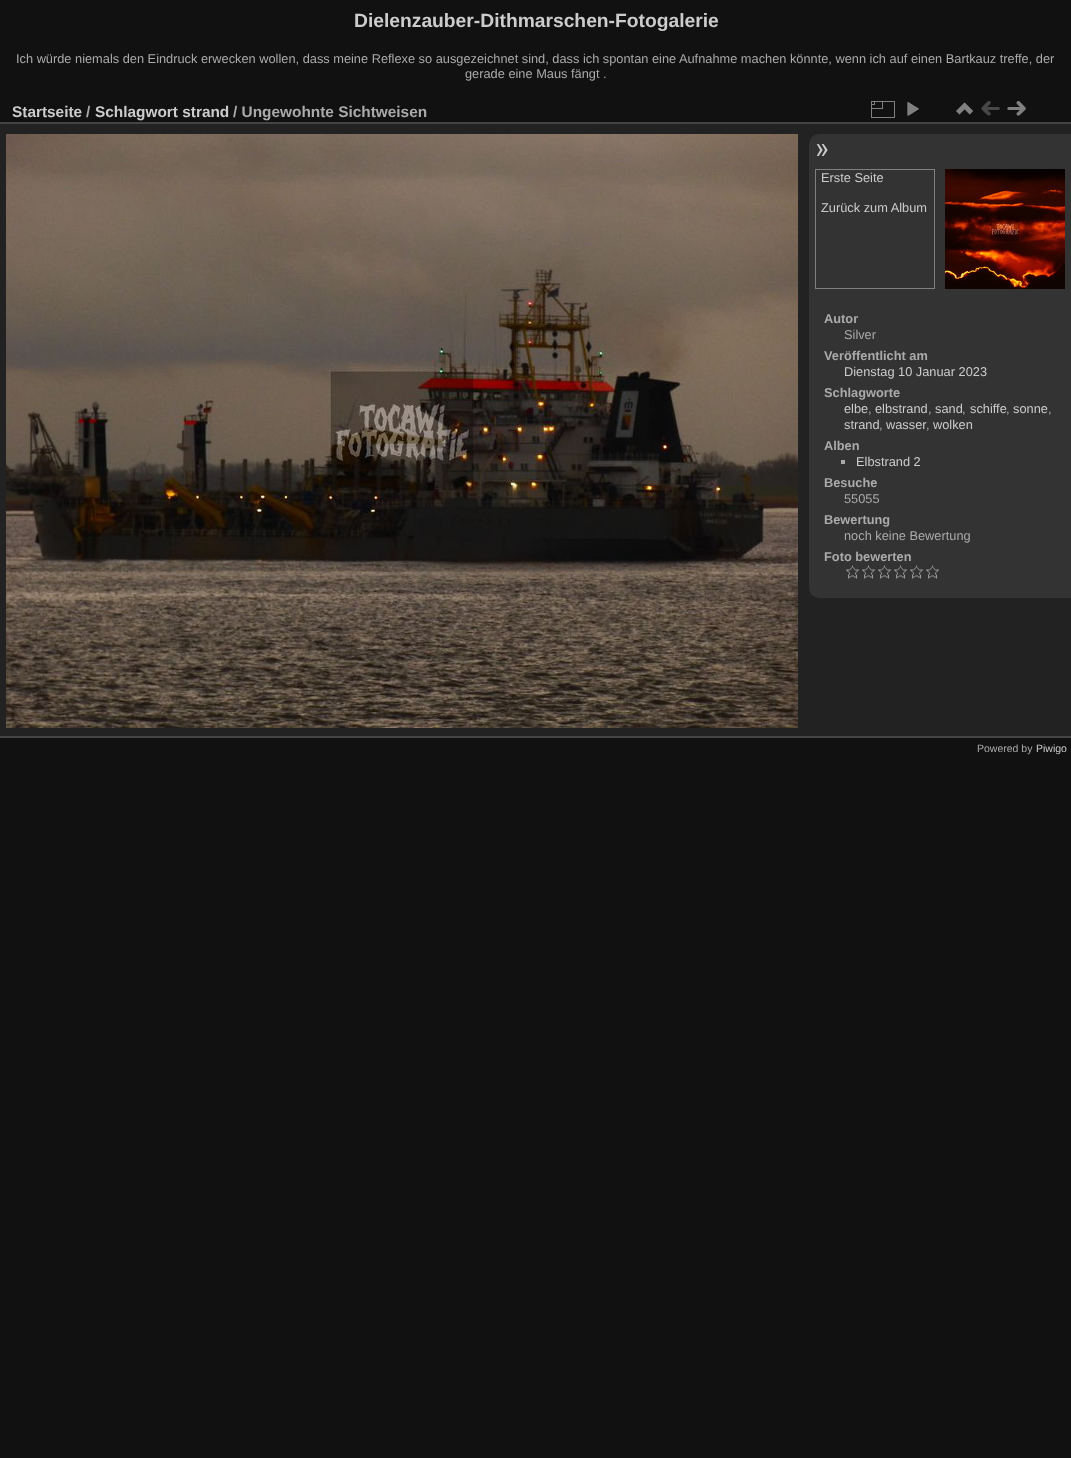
<!DOCTYPE html>
<meta charset="utf-8">
<style>body { margin: 0 } canvas { display: block }</style>
<canvas id="canvas" width="1071" height="1458"></canvas>
<img id="img1" src="images/1.png" hidden>
<img id="img2" src="images/2.png" hidden>
<img id="img3" src="images/3.png" hidden>
<img id="img4" src="images/4.png" hidden>
<img id="img5" src="images/5.png" hidden>
<img id="img6" src="images/6.png" hidden>
<img id="img7" src="images/7.png" hidden>
<img id="img8" src="images/8.png" hidden>
<img id="img9" src="images/9.png" hidden>
<script>
window.onload = function () {
    const canvas = document.getElementById('canvas');
    const context = canvas.getContext('2d');
    context.miterLimit = 4;
    context.fontKerning = 'normal';

    context.fillStyle = 'rgb(17, 17, 17)';
    context.fillRect(0, 0, 1071, 1458);
    context.fillStyle = 'rgb(34, 34, 34)';
    context.fillRect(0, 124, 1071, 612);
    context.fillStyle = 'rgb(68, 68, 68)';
    context.fillRect(0, 736, 1071, 2);
    context.fillRect(0, 122, 1071, 2);
    context.drawImage(document.getElementById('img1'), 871, 101, 24, 17);
    context.drawImage(document.getElementById('img2'), 907, 102, 12, 14);
    context.drawImage(document.getElementById('img3'), 956, 102, 17, 13);
    context.drawImage(document.getElementById('img4'), 981, 101, 19, 15);
    context.drawImage(document.getElementById('img5'), 1007, 101, 19, 15);
    context.drawImage(document.getElementById('img6'), 6, 134, 792, 594);
    context.fillStyle = 'rgb(51, 51, 51)';
    context.beginPath();
    context.roundRect(809, 134, 262, 464, [10, 0, 0, 10]);
    context.fill();
    context.drawImage(document.getElementById('img7'), 816, 144, 12, 12);
    context.strokeStyle = 'rgb(128, 128, 128)';
    context.strokeRect(815.5, 169.5, 119, 119);
    context.drawImage(document.getElementById('img8'), 945, 169, 120, 120);
    context.fillStyle = 'rgb(170, 170, 170)';
    context.fillRect(841, 460, 4, 4);
    context.drawImage(document.getElementById('img9'), 846, 565, 13, 14);
    context.drawImage(document.getElementById('img9'), 862, 565, 13, 14);
    context.drawImage(document.getElementById('img9'), 878, 565, 13, 14);
    context.drawImage(document.getElementById('img9'), 894, 565, 13, 14);
    context.drawImage(document.getElementById('img9'), 910, 565, 13, 14);
    context.drawImage(document.getElementById('img9'), 926, 565, 13, 14);
    context.font = 'bold 19.25px Liberation Sans';
    context.fillStyle = 'rgb(204, 204, 204)';
    context.fillText('Dielenzauber-Dithmarschen-Fotogalerie', 354, 27);
    context.font = '12.8px Liberation Sans';
    context.fillStyle = 'rgb(170, 170, 170)';
    context.fillText('Ich würde niemals den Eindruck erwecken wollen, dass meine Reflexe so ausgezeichnet sind, dass ich spontan eine Aufnahme machen könnte, wenn ich auf einen Bartkauz treffe, der', 16, 63);
    context.fillText('gerade eine Maus fängt .', 465, 78);
    context.font = 'bold 15.4px Liberation Sans';
    context.fillStyle = 'rgb(204, 204, 204)';
    context.fillText('Startseite', 12, 117);
    context.fillStyle = 'rgb(170, 170, 170)';
    context.fillText('/', 86, 117);
    context.fillStyle = 'rgb(204, 204, 204)';
    context.fillText('Schlagwort strand', 95, 117);
    context.fillStyle = 'rgb(170, 170, 170)';
    context.fillText('/ Ungewohnte Sichtweisen', 233, 117);
    context.font = '12.8px Liberation Sans';
    context.fillStyle = 'rgb(204, 204, 204)';
    context.fillText('Erste Seite', 821, 182);
    context.fillText('Zurück zum Album', 821, 212);
    context.font = 'bold 12.8px Liberation Sans';
    context.fillStyle = 'rgb(170, 170, 170)';
    context.fillText('Autor', 824, 323);
    context.font = '12.8px Liberation Sans';
    context.fillText('Silver', 844, 339);
    context.font = 'bold 12.8px Liberation Sans';
    context.fillText('Veröffentlicht am', 824, 360);
    context.font = '12.8px Liberation Sans';
    context.fillStyle = 'rgb(204, 204, 204)';
    context.fillText('Dienstag 10 Januar 2023', 844, 376);
    context.font = 'bold 12.8px Liberation Sans';
    context.fillStyle = 'rgb(170, 170, 170)';
    context.fillText('Schlagworte', 824, 397);
    context.font = '12.8px Liberation Sans';
    context.fillStyle = 'rgb(204, 204, 204)';
    context.fillText('elbe', 844, 413);
    context.fillStyle = 'rgb(170, 170, 170)';
    context.fillText(',', 868, 413);
    context.fillStyle = 'rgb(204, 204, 204)';
    context.fillText('elbstrand', 875, 413);
    context.fillStyle = 'rgb(170, 170, 170)';
    context.fillText(',', 928, 413);
    context.fillStyle = 'rgb(204, 204, 204)';
    context.fillText('sand', 935, 413);
    context.fillStyle = 'rgb(170, 170, 170)';
    context.fillText(',', 962, 413);
    context.fillStyle = 'rgb(204, 204, 204)';
    context.fillText('schiffe', 970, 413);
    context.fillStyle = 'rgb(170, 170, 170)';
    context.fillText(',', 1006, 413);
    context.fillStyle = 'rgb(204, 204, 204)';
    context.fillText('sonne', 1013, 413);
    context.fillStyle = 'rgb(170, 170, 170)';
    context.fillText(',', 1048, 413);
    context.fillStyle = 'rgb(204, 204, 204)';
    context.fillText('strand', 844, 429);
    context.fillStyle = 'rgb(170, 170, 170)';
    context.fillText(',', 879, 429);
    context.fillStyle = 'rgb(204, 204, 204)';
    context.fillText('wasser', 886, 429);
    context.fillStyle = 'rgb(170, 170, 170)';
    context.fillText(',', 926, 429);
    context.fillStyle = 'rgb(204, 204, 204)';
    context.fillText('wolken', 933, 429);
    context.font = 'bold 12.8px Liberation Sans';
    context.fillStyle = 'rgb(170, 170, 170)';
    context.fillText('Alben', 824, 450);
    context.font = '12.8px Liberation Sans';
    context.fillStyle = 'rgb(204, 204, 204)';
    context.fillText('Elbstrand 2', 856, 466);
    context.font = 'bold 12.8px Liberation Sans';
    context.fillStyle = 'rgb(170, 170, 170)';
    context.fillText('Besuche', 824, 487);
    context.font = '12.8px Liberation Sans';
    context.fillText('55055', 844, 503);
    context.font = 'bold 12.8px Liberation Sans';
    context.fillText('Bewertung', 824, 524);
    context.font = '12.8px Liberation Sans';
    context.fillText('noch keine Bewertung', 844, 540);
    context.font = 'bold 12.8px Liberation Sans';
    context.fillText('Foto bewerten', 824, 561);
    context.font = '10.5px Liberation Sans';
    context.fillText('Powered by', 977, 752);
    context.fillStyle = 'rgb(204, 204, 204)';
    context.fillText('Piwigo', 1036, 752);
};
</script>
